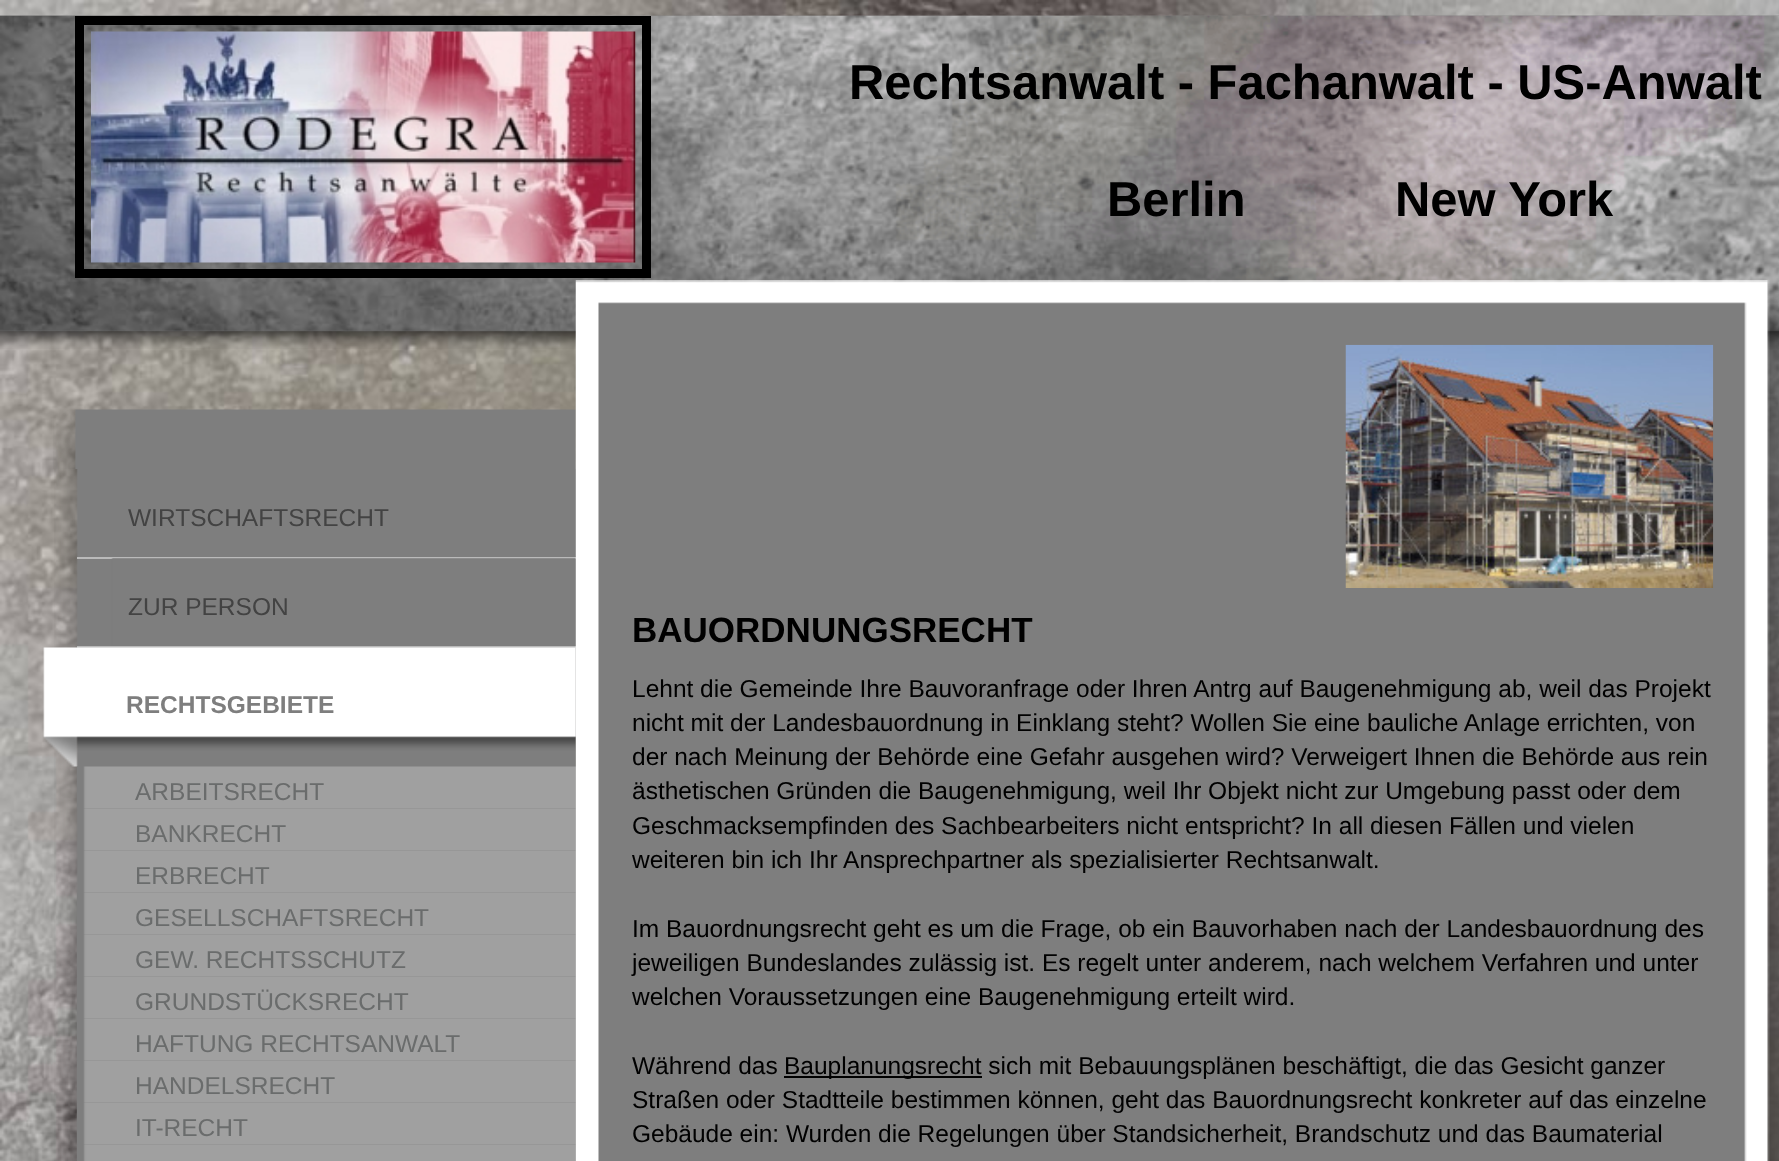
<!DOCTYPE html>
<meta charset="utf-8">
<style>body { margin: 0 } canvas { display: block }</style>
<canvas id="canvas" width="1779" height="1161"></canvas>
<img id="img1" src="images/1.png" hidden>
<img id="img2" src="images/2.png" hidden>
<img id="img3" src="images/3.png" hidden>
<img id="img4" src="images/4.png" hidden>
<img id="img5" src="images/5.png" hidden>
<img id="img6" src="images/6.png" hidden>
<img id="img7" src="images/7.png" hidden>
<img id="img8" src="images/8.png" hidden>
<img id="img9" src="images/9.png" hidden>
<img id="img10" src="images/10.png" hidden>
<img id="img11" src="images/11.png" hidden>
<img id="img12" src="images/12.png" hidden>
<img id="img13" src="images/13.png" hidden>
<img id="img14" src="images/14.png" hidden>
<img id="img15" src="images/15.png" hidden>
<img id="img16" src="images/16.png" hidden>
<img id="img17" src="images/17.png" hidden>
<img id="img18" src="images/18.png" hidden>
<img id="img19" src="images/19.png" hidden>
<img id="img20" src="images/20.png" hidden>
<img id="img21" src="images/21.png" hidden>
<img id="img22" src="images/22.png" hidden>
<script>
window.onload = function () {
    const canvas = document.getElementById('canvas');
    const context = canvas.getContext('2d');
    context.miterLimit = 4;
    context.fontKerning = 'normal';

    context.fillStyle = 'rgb(255, 255, 255)';
    context.fillRect(0, 0, 1779, 1161);
    context.drawImage(document.getElementById('img1'), 0, 0, 1779, 1161);
    context.drawImage(document.getElementById('img2'), 0, 15, 1779, 334);
    context.drawImage(document.getElementById('img3'), 0, 15, 1779, 317);
    context.strokeStyle = 'rgb(0, 0, 0)';
    context.lineWidth = 9;
    context.strokeRect(79.5, 20.5, 567, 253);
    context.drawImage(document.getElementById('img4'), 91, 31, 545, 232);
    context.drawImage(document.getElementById('img5'), 53, 409, 523, 60);
    context.drawImage(document.getElementById('img6'), 54, 469, 522, 692);
    context.drawImage(document.getElementById('img7'), 575, 469, 1, 88);
    context.fillStyle = 'rgb(186, 186, 186)';
    context.fillRect(77, 557, 499, 2);
    context.drawImage(document.getElementById('img8'), 111, 558, 465, 88);
    context.fillRect(77, 646, 499, 2);
    context.drawImage(document.getElementById('img9'), 43, 647, 533, 120);
    context.drawImage(document.getElementById('img10'), 77, 766, 499, 43);
    context.drawImage(document.getElementById('img11'), 83, 808, 493, 43);
    context.drawImage(document.getElementById('img12'), 83, 850, 493, 43);
    context.drawImage(document.getElementById('img13'), 77, 892, 499, 43);
    context.drawImage(document.getElementById('img14'), 77, 934, 499, 43);
    context.drawImage(document.getElementById('img15'), 77, 976, 499, 43);
    context.drawImage(document.getElementById('img16'), 77, 1018, 499, 43);
    context.drawImage(document.getElementById('img17'), 77, 1060, 499, 43);
    context.drawImage(document.getElementById('img18'), 77, 1102, 499, 43);
    context.drawImage(document.getElementById('img19'), 77, 1144, 499, 17);
    context.drawImage(document.getElementById('img20'), 575, 280, 1204, 56);
    context.drawImage(document.getElementById('img21'), 575, 336, 1204, 825);
    context.drawImage(document.getElementById('img22'), 1345, 344, 369, 244);
    context.fillStyle = 'rgb(0, 0, 0)';
    context.fillRect(784, 1076, 198, 2);
    context.font = 'bold 48.9px Liberation Sans';
    context.fillText('Rechtsanwalt - Fachanwalt - US-Anwalt', 849, 99);
    context.fillText('Berlin           New York', 1107, 216);
    context.font = '24.5px Liberation Sans';
    context.fillStyle = 'rgb(67, 67, 67)';
    context.fillText('WIRTSCHAFTSRECHT', 128, 526);
    context.fillText('ZUR PERSON', 128, 615);
    context.font = 'bold 24.5px Liberation Sans';
    context.fillStyle = 'rgb(126, 126, 126)';
    context.fillText('RECHTSGEBIETE', 126, 713);
    context.font = '24.5px Liberation Sans';
    context.fillStyle = 'rgb(106, 108, 108)';
    context.fillText('ARBEITSRECHT', 135, 800);
    context.fillText('BANKRECHT', 135, 842);
    context.fillText('ERBRECHT', 135, 884);
    context.fillText('GESELLSCHAFTSRECHT', 135, 926);
    context.fillText('GEW. RECHTSSCHUTZ', 135, 968);
    context.fillText('GRUNDSTÜCKSRECHT', 135, 1010);
    context.fillText('HAFTUNG RECHTSANWALT', 135, 1052);
    context.fillText('HANDELSRECHT', 135, 1094);
    context.fillText('IT-RECHT', 135, 1136);
    context.font = 'bold 35px Liberation Sans';
    context.fillStyle = 'rgb(0, 0, 0)';
    context.fillText('BAUORDNUNGSRECHT', 632, 642);
    context.font = '24.5px Liberation Sans';
    context.fillText('Lehnt die Gemeinde Ihre Bauvoranfrage oder Ihren Antrg auf Baugenehmigung ab, weil das Projekt', 632, 697);
    context.fillText('nicht mit der Landesbauordnung in Einklang steht? Wollen Sie eine bauliche Anlage errichten, von', 632, 731);
    context.fillText('der nach Meinung der Behörde eine Gefahr ausgehen wird? Verweigert Ihnen die Behörde aus rein', 632, 765);
    context.fillText('ästhetischen Gründen die Baugenehmigung, weil Ihr Objekt nicht zur Umgebung passt oder dem', 632, 799);
    context.fillText('Geschmacksempfinden des Sachbearbeiters nicht entspricht? In all diesen Fällen und vielen', 632, 834);
    context.fillText('weiteren bin ich Ihr Ansprechpartner als spezialisierter Rechtsanwalt.', 632, 868);
    context.fillText('Im Bauordnungsrecht geht es um die Frage, ob ein Bauvorhaben nach der Landesbauordnung des', 632, 937);
    context.fillText('jeweiligen Bundeslandes zulässig ist. Es regelt unter anderem, nach welchem Verfahren und unter', 632, 971);
    context.fillText('welchen Voraussetzungen eine Baugenehmigung erteilt wird.', 632, 1005);
    context.fillText('Während das', 632, 1074);
    context.fillText('Bauplanungsrecht sich mit Bebauungsplänen beschäftigt, die das Gesicht ganzer', 784, 1074);
    context.fillText('Straßen oder Stadtteile bestimmen können, geht das Bauordnungsrecht konkreter auf das einzelne', 632, 1108);
    context.fillText('Gebäude ein: Wurden die Regelungen über Standsicherheit, Brandschutz und das Baumaterial', 632, 1142);
};
</script>
